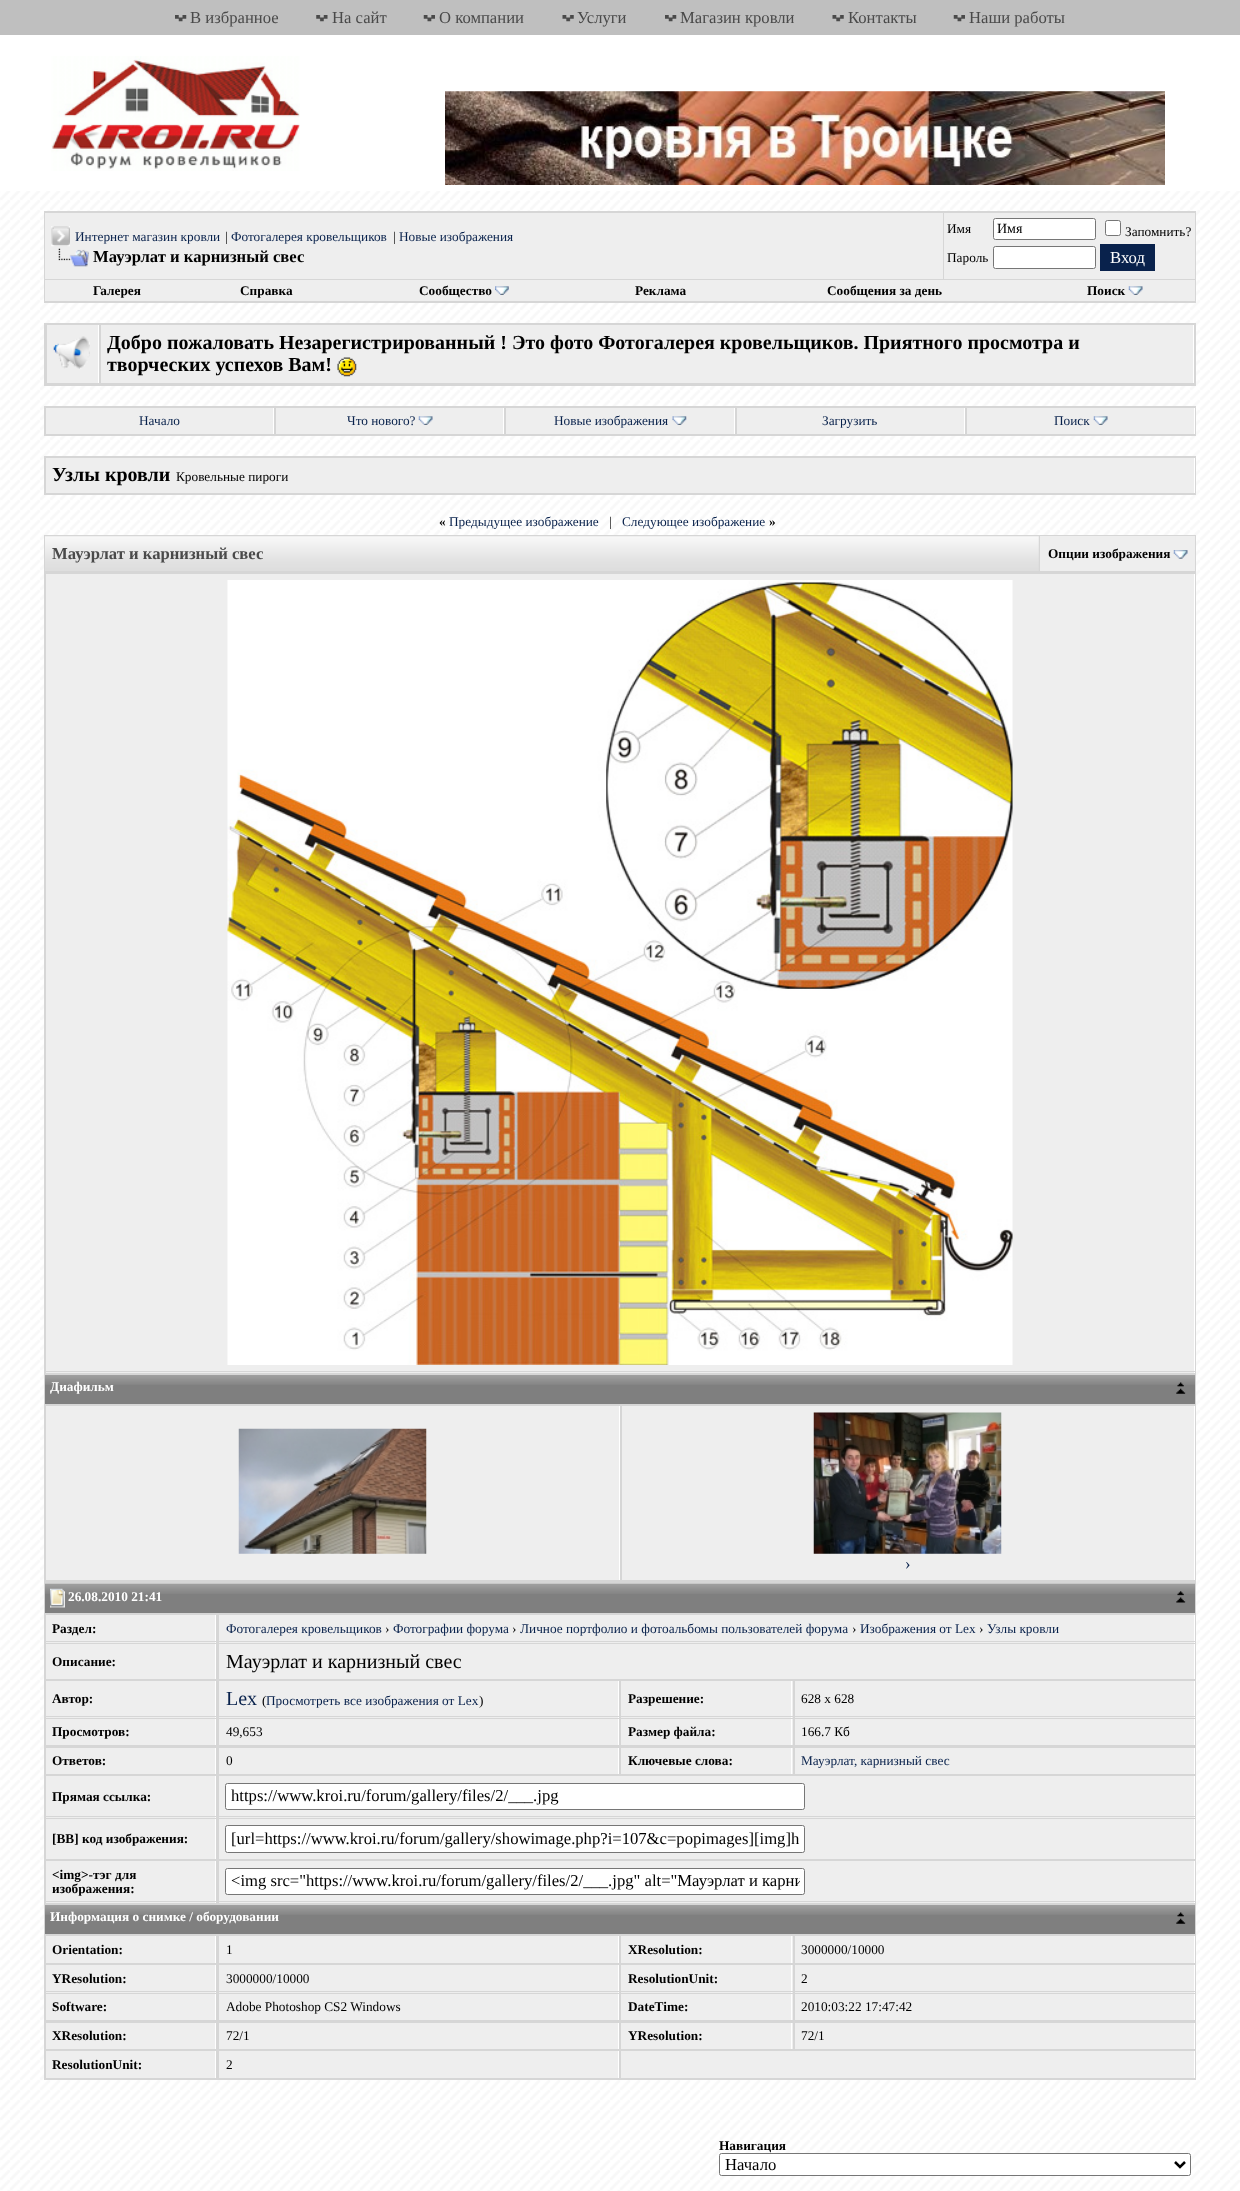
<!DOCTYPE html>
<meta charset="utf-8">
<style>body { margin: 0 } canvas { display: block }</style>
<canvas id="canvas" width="1240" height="2191"></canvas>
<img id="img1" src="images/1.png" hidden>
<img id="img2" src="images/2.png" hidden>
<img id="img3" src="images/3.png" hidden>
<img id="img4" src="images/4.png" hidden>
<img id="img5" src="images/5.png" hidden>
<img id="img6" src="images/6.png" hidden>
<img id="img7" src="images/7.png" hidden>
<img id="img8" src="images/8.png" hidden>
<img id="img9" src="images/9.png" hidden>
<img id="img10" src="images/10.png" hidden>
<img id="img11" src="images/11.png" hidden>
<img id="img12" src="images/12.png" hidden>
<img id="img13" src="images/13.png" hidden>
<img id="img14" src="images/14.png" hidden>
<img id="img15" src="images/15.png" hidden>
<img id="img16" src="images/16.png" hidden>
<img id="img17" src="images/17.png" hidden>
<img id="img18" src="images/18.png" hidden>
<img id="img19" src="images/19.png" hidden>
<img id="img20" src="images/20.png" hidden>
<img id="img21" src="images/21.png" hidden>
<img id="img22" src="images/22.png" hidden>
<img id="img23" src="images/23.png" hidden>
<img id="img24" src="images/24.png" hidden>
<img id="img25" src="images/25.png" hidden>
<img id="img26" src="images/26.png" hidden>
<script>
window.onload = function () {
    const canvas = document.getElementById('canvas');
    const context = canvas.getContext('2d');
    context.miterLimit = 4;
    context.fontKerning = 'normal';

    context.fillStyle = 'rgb(255, 255, 255)';
    context.fillRect(0, 0, 1240, 2191);
    context.drawImage(document.getElementById('img1'), 0, 191, 1240, 2000);
    context.fillStyle = 'rgb(191, 191, 191)';
    context.fillRect(0, 0, 1240, 35);
    context.drawImage(document.getElementById('img2'), 175, 15, 12, 7);
    context.drawImage(document.getElementById('img3'), 316, 15, 12, 7);
    context.drawImage(document.getElementById('img4'), 423, 15, 12, 7);
    context.drawImage(document.getElementById('img5'), 562, 15, 12, 7);
    context.drawImage(document.getElementById('img2'), 665, 15, 12, 7);
    context.drawImage(document.getElementById('img5'), 832, 15, 12, 7);
    context.drawImage(document.getElementById('img6'), 953, 15, 12, 7);
    context.drawImage(document.getElementById('img7'), 51, 56, 249, 115);
    context.drawImage(document.getElementById('img8'), 445, 91, 720, 94);
    context.fillStyle = 'rgb(214, 214, 214)';
    context.fillRect(44, 211, 1152, 92);
    context.fillStyle = 'rgb(238, 238, 238)';
    context.fillRect(45, 213, 898, 66);
    context.drawImage(document.getElementById('img9'), 51, 226, 19, 21);
    context.drawImage(document.getElementById('img10'), 58, 248, 31, 19);
    context.fillRect(944, 213, 251, 66);
    context.fillStyle = 'rgb(255, 255, 255)';
    context.beginPath();
    context.roundRect(993.5, 218.5, 102, 21, 2);
    context.fill();
    context.strokeStyle = 'rgb(118, 118, 118)';
    context.stroke();
    context.beginPath();
    context.roundRect(1105.5, 220.5, 15, 15, 2);
    context.fill();
    context.stroke();
    context.beginPath();
    context.roundRect(993.5, 246.5, 102, 22, 2);
    context.fill();
    context.stroke();
    context.fillStyle = 'rgb(9, 34, 76)';
    context.fillRect(1100, 244, 55, 27);
    context.fillStyle = 'rgb(238, 238, 238)';
    context.fillRect(45, 280, 1150, 21);
    context.drawImage(document.getElementById('img11'), 495, 286, 14, 9);
    context.drawImage(document.getElementById('img12'), 1128, 286, 15, 9);
    context.fillStyle = 'rgb(214, 214, 214)';
    context.fillRect(44, 323, 1152, 63);
    context.fillStyle = 'rgb(238, 238, 238)';
    context.fillRect(47, 325, 51, 58);
    context.fillStyle = 'rgb(255, 255, 255)';
    context.fillRect(98, 325, 1, 59);
    context.fillStyle = 'rgb(214, 214, 214)';
    context.fillRect(98, 383, 1, 1);
    context.drawImage(document.getElementById('img13'), 53, 336, 37, 33);
    context.fillStyle = 'rgb(238, 238, 238)';
    context.fillRect(101, 325, 1092, 58);
    context.fillStyle = 'rgb(255, 255, 255)';
    context.fillRect(1193, 325, 1, 59);
    context.fillStyle = 'rgb(214, 214, 214)';
    context.fillRect(1193, 383, 1, 1);
    context.drawImage(document.getElementById('img14'), 337, 357, 20, 20);
    context.fillRect(44, 406, 1152, 30);
    context.fillStyle = 'rgb(238, 238, 238)';
    context.fillRect(46, 408, 227, 26);
    context.fillStyle = 'rgb(255, 255, 255)';
    context.fillRect(273, 408, 1, 27);
    context.fillStyle = 'rgb(214, 214, 214)';
    context.fillRect(273, 434, 1, 1);
    context.fillStyle = 'rgb(238, 238, 238)';
    context.fillRect(276, 408, 227, 26);
    context.fillStyle = 'rgb(255, 255, 255)';
    context.fillRect(503, 408, 1, 27);
    context.fillStyle = 'rgb(214, 214, 214)';
    context.fillRect(503, 434, 1, 1);
    context.drawImage(document.getElementById('img15'), 418, 416, 15, 9);
    context.fillStyle = 'rgb(238, 238, 238)';
    context.fillRect(506, 408, 228, 26);
    context.fillStyle = 'rgb(255, 255, 255)';
    context.fillRect(734, 408, 1, 27);
    context.fillStyle = 'rgb(214, 214, 214)';
    context.fillRect(734, 434, 1, 1);
    context.drawImage(document.getElementById('img16'), 672, 416, 15, 9);
    context.fillStyle = 'rgb(238, 238, 238)';
    context.fillRect(737, 408, 227, 26);
    context.fillStyle = 'rgb(255, 255, 255)';
    context.fillRect(964, 408, 1, 27);
    context.fillStyle = 'rgb(214, 214, 214)';
    context.fillRect(964, 434, 1, 1);
    context.fillStyle = 'rgb(238, 238, 238)';
    context.fillRect(967, 408, 227, 26);
    context.fillStyle = 'rgb(255, 255, 255)';
    context.fillRect(1194, 408, 1, 27);
    context.fillStyle = 'rgb(214, 214, 214)';
    context.fillRect(1194, 434, 1, 1);
    context.drawImage(document.getElementById('img12'), 1093, 416, 15, 9);
    context.fillRect(44, 456, 1152, 39);
    context.fillStyle = 'rgb(238, 238, 238)';
    context.fillRect(46, 458, 1148, 35);
    context.fillStyle = 'rgb(255, 255, 255)';
    context.fillRect(1194, 458, 1, 36);
    context.fillStyle = 'rgb(214, 214, 214)';
    context.fillRect(1194, 493, 1, 1);
    context.fillRect(44, 535, 1152, 1545);
    context.drawImage(document.getElementById('img17'), 45, 536, 994, 35);
    context.fillStyle = 'rgb(238, 238, 238)';
    context.fillRect(1040, 536, 155, 35);
    context.drawImage(document.getElementById('img18'), 1173, 550, 15, 9);
    context.fillRect(46, 574, 1148, 799);
    context.fillStyle = 'rgb(255, 255, 255)';
    context.fillRect(1194, 574, 1, 799);
    context.fillStyle = 'rgb(214, 214, 214)';
    context.fillRect(45, 1371, 1150, 1);
    context.drawImage(document.getElementById('img19'), 227, 580, 786, 785);
    context.fillStyle = 'rgb(127, 127, 127)';
    context.fillRect(45, 1385, 1150, 19);
    context.drawImage(document.getElementById('img20'), 45, 1375, 1150, 10);
    context.drawImage(document.getElementById('img21'), 1176, 1382, 10, 12);
    context.fillStyle = 'rgb(238, 238, 238)';
    context.fillRect(46, 1406, 573, 174);
    context.fillStyle = 'rgb(255, 255, 255)';
    context.fillRect(619, 1406, 1, 175);
    context.fillStyle = 'rgb(214, 214, 214)';
    context.fillRect(619, 1580, 1, 1);
    context.drawImage(document.getElementById('img22'), 238, 1428, 189, 126);
    context.fillStyle = 'rgb(238, 238, 238)';
    context.fillRect(622, 1406, 572, 174);
    context.fillStyle = 'rgb(255, 255, 255)';
    context.fillRect(1194, 1406, 1, 175);
    context.fillStyle = 'rgb(214, 214, 214)';
    context.fillRect(1194, 1580, 1, 1);
    context.drawImage(document.getElementById('img23'), 813, 1412, 189, 142);
    context.fillStyle = 'rgb(127, 127, 127)';
    context.fillRect(45, 1594, 1150, 19);
    context.drawImage(document.getElementById('img24'), 45, 1583, 1150, 11);
    context.drawImage(document.getElementById('img25'), 50, 1588, 15, 20);
    context.drawImage(document.getElementById('img26'), 1176, 1591, 10, 12);
    context.fillStyle = 'rgb(238, 238, 238)';
    context.fillRect(46, 1615, 169, 28);
    context.fillStyle = 'rgb(255, 255, 255)';
    context.fillRect(215, 1615, 1, 28);
    context.fillStyle = 'rgb(214, 214, 214)';
    context.fillRect(45, 1641, 171, 1);
    context.fillStyle = 'rgb(238, 238, 238)';
    context.fillRect(219, 1615, 975, 28);
    context.fillStyle = 'rgb(255, 255, 255)';
    context.fillRect(1194, 1615, 1, 28);
    context.fillStyle = 'rgb(214, 214, 214)';
    context.fillRect(218, 1641, 977, 1);
    context.fillStyle = 'rgb(238, 238, 238)';
    context.fillRect(46, 1644, 169, 35);
    context.fillStyle = 'rgb(255, 255, 255)';
    context.fillRect(215, 1644, 1, 36);
    context.fillStyle = 'rgb(214, 214, 214)';
    context.fillRect(215, 1679, 1, 1);
    context.fillStyle = 'rgb(238, 238, 238)';
    context.fillRect(219, 1644, 975, 35);
    context.fillStyle = 'rgb(255, 255, 255)';
    context.fillRect(1194, 1644, 1, 36);
    context.fillStyle = 'rgb(214, 214, 214)';
    context.fillRect(1194, 1679, 1, 1);
    context.fillStyle = 'rgb(238, 238, 238)';
    context.fillRect(46, 1681, 169, 37);
    context.fillStyle = 'rgb(255, 255, 255)';
    context.fillRect(215, 1681, 1, 37);
    context.fillStyle = 'rgb(214, 214, 214)';
    context.fillRect(45, 1716, 171, 1);
    context.fillStyle = 'rgb(238, 238, 238)';
    context.fillRect(219, 1681, 399, 37);
    context.fillStyle = 'rgb(255, 255, 255)';
    context.fillRect(618, 1681, 1, 37);
    context.fillStyle = 'rgb(214, 214, 214)';
    context.fillRect(218, 1716, 401, 1);
    context.fillStyle = 'rgb(238, 238, 238)';
    context.fillRect(621, 1681, 172, 37);
    context.fillStyle = 'rgb(255, 255, 255)';
    context.fillRect(791, 1681, 1, 37);
    context.fillStyle = 'rgb(214, 214, 214)';
    context.fillRect(620, 1716, 173, 1);
    context.fillStyle = 'rgb(238, 238, 238)';
    context.fillRect(795, 1681, 399, 37);
    context.fillStyle = 'rgb(255, 255, 255)';
    context.fillRect(1194, 1681, 1, 37);
    context.fillStyle = 'rgb(214, 214, 214)';
    context.fillRect(794, 1716, 401, 1);
    context.fillStyle = 'rgb(238, 238, 238)';
    context.fillRect(46, 1719, 169, 26);
    context.fillStyle = 'rgb(255, 255, 255)';
    context.fillRect(215, 1719, 1, 27);
    context.fillStyle = 'rgb(214, 214, 214)';
    context.fillRect(215, 1745, 1, 1);
    context.fillStyle = 'rgb(238, 238, 238)';
    context.fillRect(219, 1719, 399, 26);
    context.fillStyle = 'rgb(255, 255, 255)';
    context.fillRect(618, 1719, 1, 27);
    context.fillStyle = 'rgb(214, 214, 214)';
    context.fillRect(618, 1745, 1, 1);
    context.fillStyle = 'rgb(238, 238, 238)';
    context.fillRect(621, 1719, 172, 26);
    context.fillStyle = 'rgb(255, 255, 255)';
    context.fillRect(791, 1719, 1, 27);
    context.fillStyle = 'rgb(214, 214, 214)';
    context.fillRect(791, 1745, 2, 1);
    context.fillStyle = 'rgb(238, 238, 238)';
    context.fillRect(795, 1719, 399, 26);
    context.fillStyle = 'rgb(255, 255, 255)';
    context.fillRect(1194, 1719, 1, 27);
    context.fillStyle = 'rgb(214, 214, 214)';
    context.fillRect(1194, 1745, 1, 1);
    context.fillStyle = 'rgb(238, 238, 238)';
    context.fillRect(46, 1748, 169, 26);
    context.fillStyle = 'rgb(255, 255, 255)';
    context.fillRect(215, 1748, 1, 27);
    context.fillStyle = 'rgb(214, 214, 214)';
    context.fillRect(215, 1774, 1, 1);
    context.fillStyle = 'rgb(238, 238, 238)';
    context.fillRect(219, 1748, 399, 26);
    context.fillStyle = 'rgb(255, 255, 255)';
    context.fillRect(618, 1748, 1, 27);
    context.fillStyle = 'rgb(214, 214, 214)';
    context.fillRect(618, 1774, 1, 1);
    context.fillStyle = 'rgb(238, 238, 238)';
    context.fillRect(621, 1748, 172, 26);
    context.fillStyle = 'rgb(255, 255, 255)';
    context.fillRect(791, 1748, 1, 27);
    context.fillStyle = 'rgb(214, 214, 214)';
    context.fillRect(791, 1774, 2, 1);
    context.fillStyle = 'rgb(238, 238, 238)';
    context.fillRect(795, 1748, 399, 26);
    context.fillStyle = 'rgb(255, 255, 255)';
    context.fillRect(1194, 1748, 1, 27);
    context.fillStyle = 'rgb(214, 214, 214)';
    context.fillRect(1194, 1774, 1, 1);
    context.fillStyle = 'rgb(238, 238, 238)';
    context.fillRect(46, 1776, 169, 42);
    context.fillStyle = 'rgb(255, 255, 255)';
    context.fillRect(215, 1776, 1, 42);
    context.fillStyle = 'rgb(214, 214, 214)';
    context.fillRect(45, 1816, 171, 1);
    context.fillStyle = 'rgb(238, 238, 238)';
    context.fillRect(219, 1776, 975, 42);
    context.fillStyle = 'rgb(255, 255, 255)';
    context.fillRect(1194, 1776, 1, 42);
    context.fillStyle = 'rgb(214, 214, 214)';
    context.fillRect(218, 1816, 977, 1);
    context.fillStyle = 'rgb(255, 255, 255)';
    context.beginPath();
    context.roundRect(225.5, 1783.5, 579, 26, 2);
    context.fill();
    context.stroke();
    context.fillStyle = 'rgb(238, 238, 238)';
    context.fillRect(46, 1819, 169, 40);
    context.fillStyle = 'rgb(255, 255, 255)';
    context.fillRect(215, 1819, 1, 41);
    context.fillStyle = 'rgb(214, 214, 214)';
    context.fillRect(215, 1859, 1, 1);
    context.fillStyle = 'rgb(238, 238, 238)';
    context.fillRect(219, 1819, 975, 40);
    context.fillStyle = 'rgb(255, 255, 255)';
    context.fillRect(1194, 1819, 1, 41);
    context.fillStyle = 'rgb(214, 214, 214)';
    context.fillRect(1194, 1859, 1, 1);
    context.fillStyle = 'rgb(255, 255, 255)';
    context.beginPath();
    context.roundRect(225.5, 1825.5, 579, 27, 2);
    context.fill();
    context.stroke();
    context.fillStyle = 'rgb(238, 238, 238)';
    context.fillRect(46, 1861, 169, 42);
    context.fillStyle = 'rgb(255, 255, 255)';
    context.fillRect(215, 1861, 1, 42);
    context.fillStyle = 'rgb(214, 214, 214)';
    context.fillRect(45, 1901, 171, 1);
    context.fillStyle = 'rgb(238, 238, 238)';
    context.fillRect(219, 1861, 975, 42);
    context.fillStyle = 'rgb(255, 255, 255)';
    context.fillRect(1194, 1861, 1, 42);
    context.fillStyle = 'rgb(214, 214, 214)';
    context.fillRect(218, 1901, 977, 1);
    context.fillStyle = 'rgb(255, 255, 255)';
    context.beginPath();
    context.roundRect(225.5, 1868.5, 579, 26, 2);
    context.fill();
    context.stroke();
    context.fillStyle = 'rgb(127, 127, 127)';
    context.fillRect(45, 1915, 1150, 19);
    context.drawImage(document.getElementById('img20'), 45, 1905, 1150, 10);
    context.drawImage(document.getElementById('img21'), 1176, 1912, 10, 12);
    context.fillStyle = 'rgb(238, 238, 238)';
    context.fillRect(46, 1936, 169, 27);
    context.fillStyle = 'rgb(255, 255, 255)';
    context.fillRect(215, 1936, 1, 28);
    context.fillStyle = 'rgb(214, 214, 214)';
    context.fillRect(215, 1963, 1, 1);
    context.fillStyle = 'rgb(238, 238, 238)';
    context.fillRect(219, 1936, 399, 27);
    context.fillStyle = 'rgb(255, 255, 255)';
    context.fillRect(618, 1936, 1, 28);
    context.fillStyle = 'rgb(214, 214, 214)';
    context.fillRect(618, 1963, 1, 1);
    context.fillStyle = 'rgb(238, 238, 238)';
    context.fillRect(621, 1936, 172, 27);
    context.fillStyle = 'rgb(255, 255, 255)';
    context.fillRect(791, 1936, 1, 28);
    context.fillStyle = 'rgb(214, 214, 214)';
    context.fillRect(791, 1963, 2, 1);
    context.fillStyle = 'rgb(238, 238, 238)';
    context.fillRect(795, 1936, 399, 27);
    context.fillStyle = 'rgb(255, 255, 255)';
    context.fillRect(1194, 1936, 1, 28);
    context.fillStyle = 'rgb(214, 214, 214)';
    context.fillRect(1194, 1963, 1, 1);
    context.fillStyle = 'rgb(238, 238, 238)';
    context.fillRect(46, 1965, 169, 28);
    context.fillStyle = 'rgb(255, 255, 255)';
    context.fillRect(215, 1965, 1, 28);
    context.fillStyle = 'rgb(214, 214, 214)';
    context.fillRect(45, 1991, 171, 1);
    context.fillStyle = 'rgb(238, 238, 238)';
    context.fillRect(219, 1965, 399, 28);
    context.fillStyle = 'rgb(255, 255, 255)';
    context.fillRect(618, 1965, 1, 28);
    context.fillStyle = 'rgb(214, 214, 214)';
    context.fillRect(218, 1991, 401, 1);
    context.fillStyle = 'rgb(238, 238, 238)';
    context.fillRect(621, 1965, 172, 28);
    context.fillStyle = 'rgb(255, 255, 255)';
    context.fillRect(791, 1965, 1, 28);
    context.fillStyle = 'rgb(214, 214, 214)';
    context.fillRect(620, 1991, 173, 1);
    context.fillStyle = 'rgb(238, 238, 238)';
    context.fillRect(795, 1965, 399, 28);
    context.fillStyle = 'rgb(255, 255, 255)';
    context.fillRect(1194, 1965, 1, 28);
    context.fillStyle = 'rgb(214, 214, 214)';
    context.fillRect(794, 1991, 401, 1);
    context.fillStyle = 'rgb(238, 238, 238)';
    context.fillRect(46, 1994, 169, 26);
    context.fillStyle = 'rgb(255, 255, 255)';
    context.fillRect(215, 1994, 1, 27);
    context.fillStyle = 'rgb(214, 214, 214)';
    context.fillRect(215, 2020, 1, 1);
    context.fillStyle = 'rgb(238, 238, 238)';
    context.fillRect(219, 1994, 399, 26);
    context.fillStyle = 'rgb(255, 255, 255)';
    context.fillRect(618, 1994, 1, 27);
    context.fillStyle = 'rgb(214, 214, 214)';
    context.fillRect(618, 2020, 1, 1);
    context.fillStyle = 'rgb(238, 238, 238)';
    context.fillRect(621, 1994, 172, 26);
    context.fillStyle = 'rgb(255, 255, 255)';
    context.fillRect(791, 1994, 1, 27);
    context.fillStyle = 'rgb(214, 214, 214)';
    context.fillRect(791, 2020, 2, 1);
    context.fillStyle = 'rgb(238, 238, 238)';
    context.fillRect(795, 1994, 399, 26);
    context.fillStyle = 'rgb(255, 255, 255)';
    context.fillRect(1194, 1994, 1, 27);
    context.fillStyle = 'rgb(214, 214, 214)';
    context.fillRect(1194, 2020, 1, 1);
    context.fillStyle = 'rgb(238, 238, 238)';
    context.fillRect(46, 2023, 169, 26);
    context.fillStyle = 'rgb(255, 255, 255)';
    context.fillRect(215, 2023, 1, 27);
    context.fillStyle = 'rgb(214, 214, 214)';
    context.fillRect(215, 2049, 1, 1);
    context.fillStyle = 'rgb(238, 238, 238)';
    context.fillRect(219, 2023, 399, 26);
    context.fillStyle = 'rgb(255, 255, 255)';
    context.fillRect(618, 2023, 1, 27);
    context.fillStyle = 'rgb(214, 214, 214)';
    context.fillRect(618, 2049, 1, 1);
    context.fillStyle = 'rgb(238, 238, 238)';
    context.fillRect(621, 2023, 172, 26);
    context.fillStyle = 'rgb(255, 255, 255)';
    context.fillRect(791, 2023, 1, 27);
    context.fillStyle = 'rgb(214, 214, 214)';
    context.fillRect(791, 2049, 2, 1);
    context.fillStyle = 'rgb(238, 238, 238)';
    context.fillRect(795, 2023, 399, 26);
    context.fillStyle = 'rgb(255, 255, 255)';
    context.fillRect(1194, 2023, 1, 27);
    context.fillStyle = 'rgb(214, 214, 214)';
    context.fillRect(1194, 2049, 1, 1);
    context.fillStyle = 'rgb(238, 238, 238)';
    context.fillRect(46, 2051, 169, 27);
    context.fillStyle = 'rgb(255, 255, 255)';
    context.fillRect(215, 2051, 1, 28);
    context.fillStyle = 'rgb(214, 214, 214)';
    context.fillRect(215, 2078, 1, 1);
    context.fillStyle = 'rgb(238, 238, 238)';
    context.fillRect(219, 2051, 399, 27);
    context.fillStyle = 'rgb(255, 255, 255)';
    context.fillRect(618, 2051, 1, 28);
    context.fillStyle = 'rgb(214, 214, 214)';
    context.fillRect(618, 2078, 1, 1);
    context.fillStyle = 'rgb(238, 238, 238)';
    context.fillRect(621, 2051, 573, 27);
    context.fillStyle = 'rgb(255, 255, 255)';
    context.fillRect(1194, 2051, 1, 28);
    context.fillStyle = 'rgb(214, 214, 214)';
    context.fillRect(1194, 2078, 1, 1);
    context.fillStyle = 'rgb(255, 255, 255)';
    context.beginPath();
    context.roundRect(719.5, 2153.5, 471, 22, 2);
    context.fill();
    context.stroke();
    context.beginPath();
    context.moveTo(1175, 2162);
    context.lineTo(1180, 2167);
    context.lineTo(1185, 2162);
    context.strokeStyle = 'rgb(0, 0, 0)';
    context.lineWidth = 2.5;
    context.stroke();
    context.font = '16.65px Liberation Serif';
    context.fillStyle = 'rgb(74, 74, 74)';
    context.fillText('В избранное', 190, 23);
    context.fillText('На сайт', 332, 23);
    context.fillText('О компании', 439, 23);
    context.fillText('Услуги', 577, 23);
    context.fillText('Магазин кровли', 680, 23);
    context.fillText('Контакты', 848, 23);
    context.fillText('Наши работы', 969, 23);
    context.font = '13.3px Liberation Serif';
    context.fillStyle = 'rgb(9, 34, 76)';
    context.fillText('Интернет магазин кровли', 75, 241);
    context.fillStyle = 'rgb(0, 0, 0)';
    context.fillText('|', 225, 241);
    context.fillStyle = 'rgb(9, 34, 76)';
    context.fillText('Фотогалерея кровельщиков', 231, 241);
    context.fillStyle = 'rgb(0, 0, 0)';
    context.fillText('|', 393, 241);
    context.fillStyle = 'rgb(9, 34, 76)';
    context.fillText('Новые изображения', 399, 241);
    context.font = 'bold 16.65px Liberation Serif';
    context.fillStyle = 'rgb(0, 0, 0)';
    context.fillText('Мауэрлат и карнизный свес', 93, 262);
    context.font = '13.3px Liberation Serif';
    context.fillText('Имя', 947, 233);
    context.font = '14px Liberation Serif';
    context.fillText('Имя', 997, 233);
    context.font = '13.3px Liberation Serif';
    context.fillText('Запомнить?', 1125, 236);
    context.fillText('Пароль', 947, 262);
    context.font = '16.65px Liberation Serif';
    context.fillStyle = 'rgb(255, 255, 255)';
    context.fillText('Вход', 1110, 263);
    context.font = 'bold 13.3px Liberation Serif';
    context.fillStyle = 'rgb(0, 0, 0)';
    context.fillText('Галерея', 93, 295);
    context.fillText('Справка', 240, 295);
    context.fillText('Сообщество', 419, 295);
    context.fillText('Реклама', 635, 295);
    context.fillText('Сообщения за день', 827, 295);
    context.fillText('Поиск', 1087, 295);
    context.font = 'bold 20px Liberation Serif';
    context.fillText('Добро пожаловать Незарегистрированный ! Это фото Фотогалерея кровельщиков. Приятного просмотра и', 107, 349);
    context.fillText('творческих успехов Вам!', 107, 371);
    context.font = '13.3px Liberation Serif';
    context.fillStyle = 'rgb(9, 34, 76)';
    context.fillText('Начало', 139, 425);
    context.fillText('Что нового?', 347, 425);
    context.fillText('Новые изображения', 554, 425);
    context.fillText('Загрузить', 822, 425);
    context.fillText('Поиск', 1054, 425);
    context.font = 'bold 20px Liberation Serif';
    context.fillStyle = 'rgb(0, 0, 0)';
    context.fillText('Узлы кровли', 52, 481);
    context.font = '13.3px Liberation Serif';
    context.fillText('Кровельные пироги', 176, 481);
    context.font = 'bold 13.3px Liberation Serif';
    context.fillText('«', 439, 526);
    context.font = '13.3px Liberation Serif';
    context.fillStyle = 'rgb(9, 34, 76)';
    context.fillText('Предыдущее изображение', 449, 526);
    context.fillStyle = 'rgb(0, 0, 0)';
    context.fillText('|', 609, 526);
    context.fillStyle = 'rgb(9, 34, 76)';
    context.fillText('Следующее изображение', 622, 526);
    context.font = 'bold 13.3px Liberation Serif';
    context.fillStyle = 'rgb(0, 0, 0)';
    context.fillText('»', 769, 526);
    context.font = 'bold 16.65px Liberation Serif';
    context.fillStyle = 'rgb(74, 74, 74)';
    context.fillText('Мауэрлат и карнизный свес', 52, 559);
    context.font = 'bold 13.3px Liberation Serif';
    context.fillStyle = 'rgb(0, 0, 0)';
    context.fillText('Опции изображения', 1048, 558);
    context.fillStyle = 'rgb(255, 255, 255)';
    context.fillText('Диафильм', 50, 1391);
    context.font = '16.65px Liberation Serif';
    context.fillStyle = 'rgb(9, 34, 76)';
    context.fillText('›', 905, 1569);
    context.font = 'bold 13.3px Liberation Serif';
    context.fillStyle = 'rgb(255, 255, 255)';
    context.fillText('26.08.2010 21:41', 68, 1601);
    context.fillStyle = 'rgb(0, 0, 0)';
    context.fillText('Раздел:', 52, 1633);
    context.font = '13.3px Liberation Serif';
    context.fillStyle = 'rgb(9, 34, 76)';
    context.fillText('Фотогалерея кровельщиков', 226, 1633);
    context.fillStyle = 'rgb(0, 0, 0)';
    context.fillText('›', 385, 1633);
    context.fillStyle = 'rgb(9, 34, 76)';
    context.fillText('Фотографии форума', 393, 1633);
    context.fillStyle = 'rgb(0, 0, 0)';
    context.fillText('›', 512, 1633);
    context.fillStyle = 'rgb(9, 34, 76)';
    context.fillText('Личное портфолио и фотоальбомы пользователей форума', 520, 1633);
    context.fillStyle = 'rgb(0, 0, 0)';
    context.fillText('›', 852, 1633);
    context.fillStyle = 'rgb(9, 34, 76)';
    context.fillText('Изображения от Lex', 860, 1633);
    context.fillStyle = 'rgb(0, 0, 0)';
    context.fillText('›', 979, 1633);
    context.fillStyle = 'rgb(9, 34, 76)';
    context.fillText('Узлы кровли', 987, 1633);
    context.font = 'bold 13.3px Liberation Serif';
    context.fillStyle = 'rgb(0, 0, 0)';
    context.fillText('Описание:', 52, 1666);
    context.font = '20px Liberation Serif';
    context.fillText('Мауэрлат и карнизный свес', 226, 1668);
    context.font = 'bold 13.3px Liberation Serif';
    context.fillText('Автор:', 52, 1703);
    context.font = '20px Liberation Serif';
    context.fillStyle = 'rgb(9, 34, 76)';
    context.fillText('Lex', 226, 1705);
    context.font = '13.3px Liberation Serif';
    context.fillStyle = 'rgb(0, 0, 0)';
    context.fillText('(', 262, 1705);
    context.fillStyle = 'rgb(9, 34, 76)';
    context.fillText('Просмотреть все изображения от Lex', 266, 1705);
    context.fillStyle = 'rgb(0, 0, 0)';
    context.fillText(')', 479, 1705);
    context.font = 'bold 13.3px Liberation Serif';
    context.fillText('Разрешение:', 628, 1703);
    context.font = '13.3px Liberation Serif';
    context.fillText('628 x 628', 801, 1703);
    context.font = 'bold 13.3px Liberation Serif';
    context.fillText('Просмотров:', 52, 1736);
    context.font = '13.3px Liberation Serif';
    context.fillText('49,653', 226, 1736);
    context.font = 'bold 13.3px Liberation Serif';
    context.fillText('Размер файла:', 628, 1736);
    context.font = '13.3px Liberation Serif';
    context.fillText('166.7 Кб', 801, 1736);
    context.font = 'bold 13.3px Liberation Serif';
    context.fillText('Ответов:', 52, 1765);
    context.font = '13.3px Liberation Serif';
    context.fillText('0', 226, 1765);
    context.font = 'bold 13.3px Liberation Serif';
    context.fillText('Ключевые слова:', 628, 1765);
    context.font = '13.3px Liberation Serif';
    context.fillStyle = 'rgb(9, 34, 76)';
    context.fillText('Мауэрлат, карнизный свес', 801, 1765);
    context.font = 'bold 13.3px Liberation Serif';
    context.fillStyle = 'rgb(0, 0, 0)';
    context.fillText('Прямая ссылка:', 52, 1801);
    context.font = '16.65px Liberation Serif';
    context.fillText('https://www.kroi.ru/forum/gallery/files/2/___.jpg', 231, 1801);
    context.font = 'bold 13.3px Liberation Serif';
    context.fillText('[BB] код изображения:', 52, 1843);
    context.font = '16.65px Liberation Serif';
    context.fillText('[url=https://www.kroi.ru/forum/gallery/showimage.php?i=107&c=popimages][img]h', 231, 1844);
    context.font = 'bold 13.3px Liberation Serif';
    context.fillText('<img>-тэг для', 52, 1879);
    context.fillText('изображения:', 52, 1893);
    context.save();
    context.beginPath();
    context.rect(230, 1871, 570, 20);
    context.clip();
    context.font = '16.65px Liberation Serif';
    context.fillText('<img src="https://www.kroi.ru/forum/gallery/files/2/___.jpg" alt="Мауэрлат и карни', 231, 1886);
    context.restore();
    context.fillStyle = 'rgb(255, 255, 255)';
    context.fillText('Информация о снимке / оборудовании', 50, 1921);
    context.fillStyle = 'rgb(0, 0, 0)';
    context.fillText('Orientation:', 52, 1954);
    context.font = '13.3px Liberation Serif';
    context.fillText('1', 226, 1954);
    context.font = 'bold 13.3px Liberation Serif';
    context.fillText('XResolution:', 628, 1954);
    context.font = '13.3px Liberation Serif';
    context.fillText('3000000/10000', 801, 1954);
    context.font = 'bold 13.3px Liberation Serif';
    context.fillText('YResolution:', 52, 1983);
    context.font = '13.3px Liberation Serif';
    context.fillText('3000000/10000', 226, 1983);
    context.font = 'bold 13.3px Liberation Serif';
    context.fillText('ResolutionUnit:', 628, 1983);
    context.font = '13.3px Liberation Serif';
    context.fillText('2', 801, 1983);
    context.font = 'bold 13.3px Liberation Serif';
    context.fillText('Software:', 52, 2011);
    context.font = '13.3px Liberation Serif';
    context.fillText('Adobe Photoshop CS2 Windows', 226, 2011);
    context.font = 'bold 13.3px Liberation Serif';
    context.fillText('DateTime:', 628, 2011);
    context.font = '13.3px Liberation Serif';
    context.fillText('2010:03:22 17:47:42', 801, 2011);
    context.font = 'bold 13.3px Liberation Serif';
    context.fillText('XResolution:', 52, 2040);
    context.font = '13.3px Liberation Serif';
    context.fillText('72/1', 226, 2040);
    context.font = 'bold 13.3px Liberation Serif';
    context.fillText('YResolution:', 628, 2040);
    context.font = '13.3px Liberation Serif';
    context.fillText('72/1', 801, 2040);
    context.font = 'bold 13.3px Liberation Serif';
    context.fillText('ResolutionUnit:', 52, 2069);
    context.font = '13.3px Liberation Serif';
    context.fillText('2', 226, 2069);
    context.font = 'bold 13.3px Liberation Serif';
    context.fillText('Навигация', 719, 2150);
    context.font = '16.65px Liberation Serif';
    context.fillText('Начало', 725, 2170);
};
</script>
